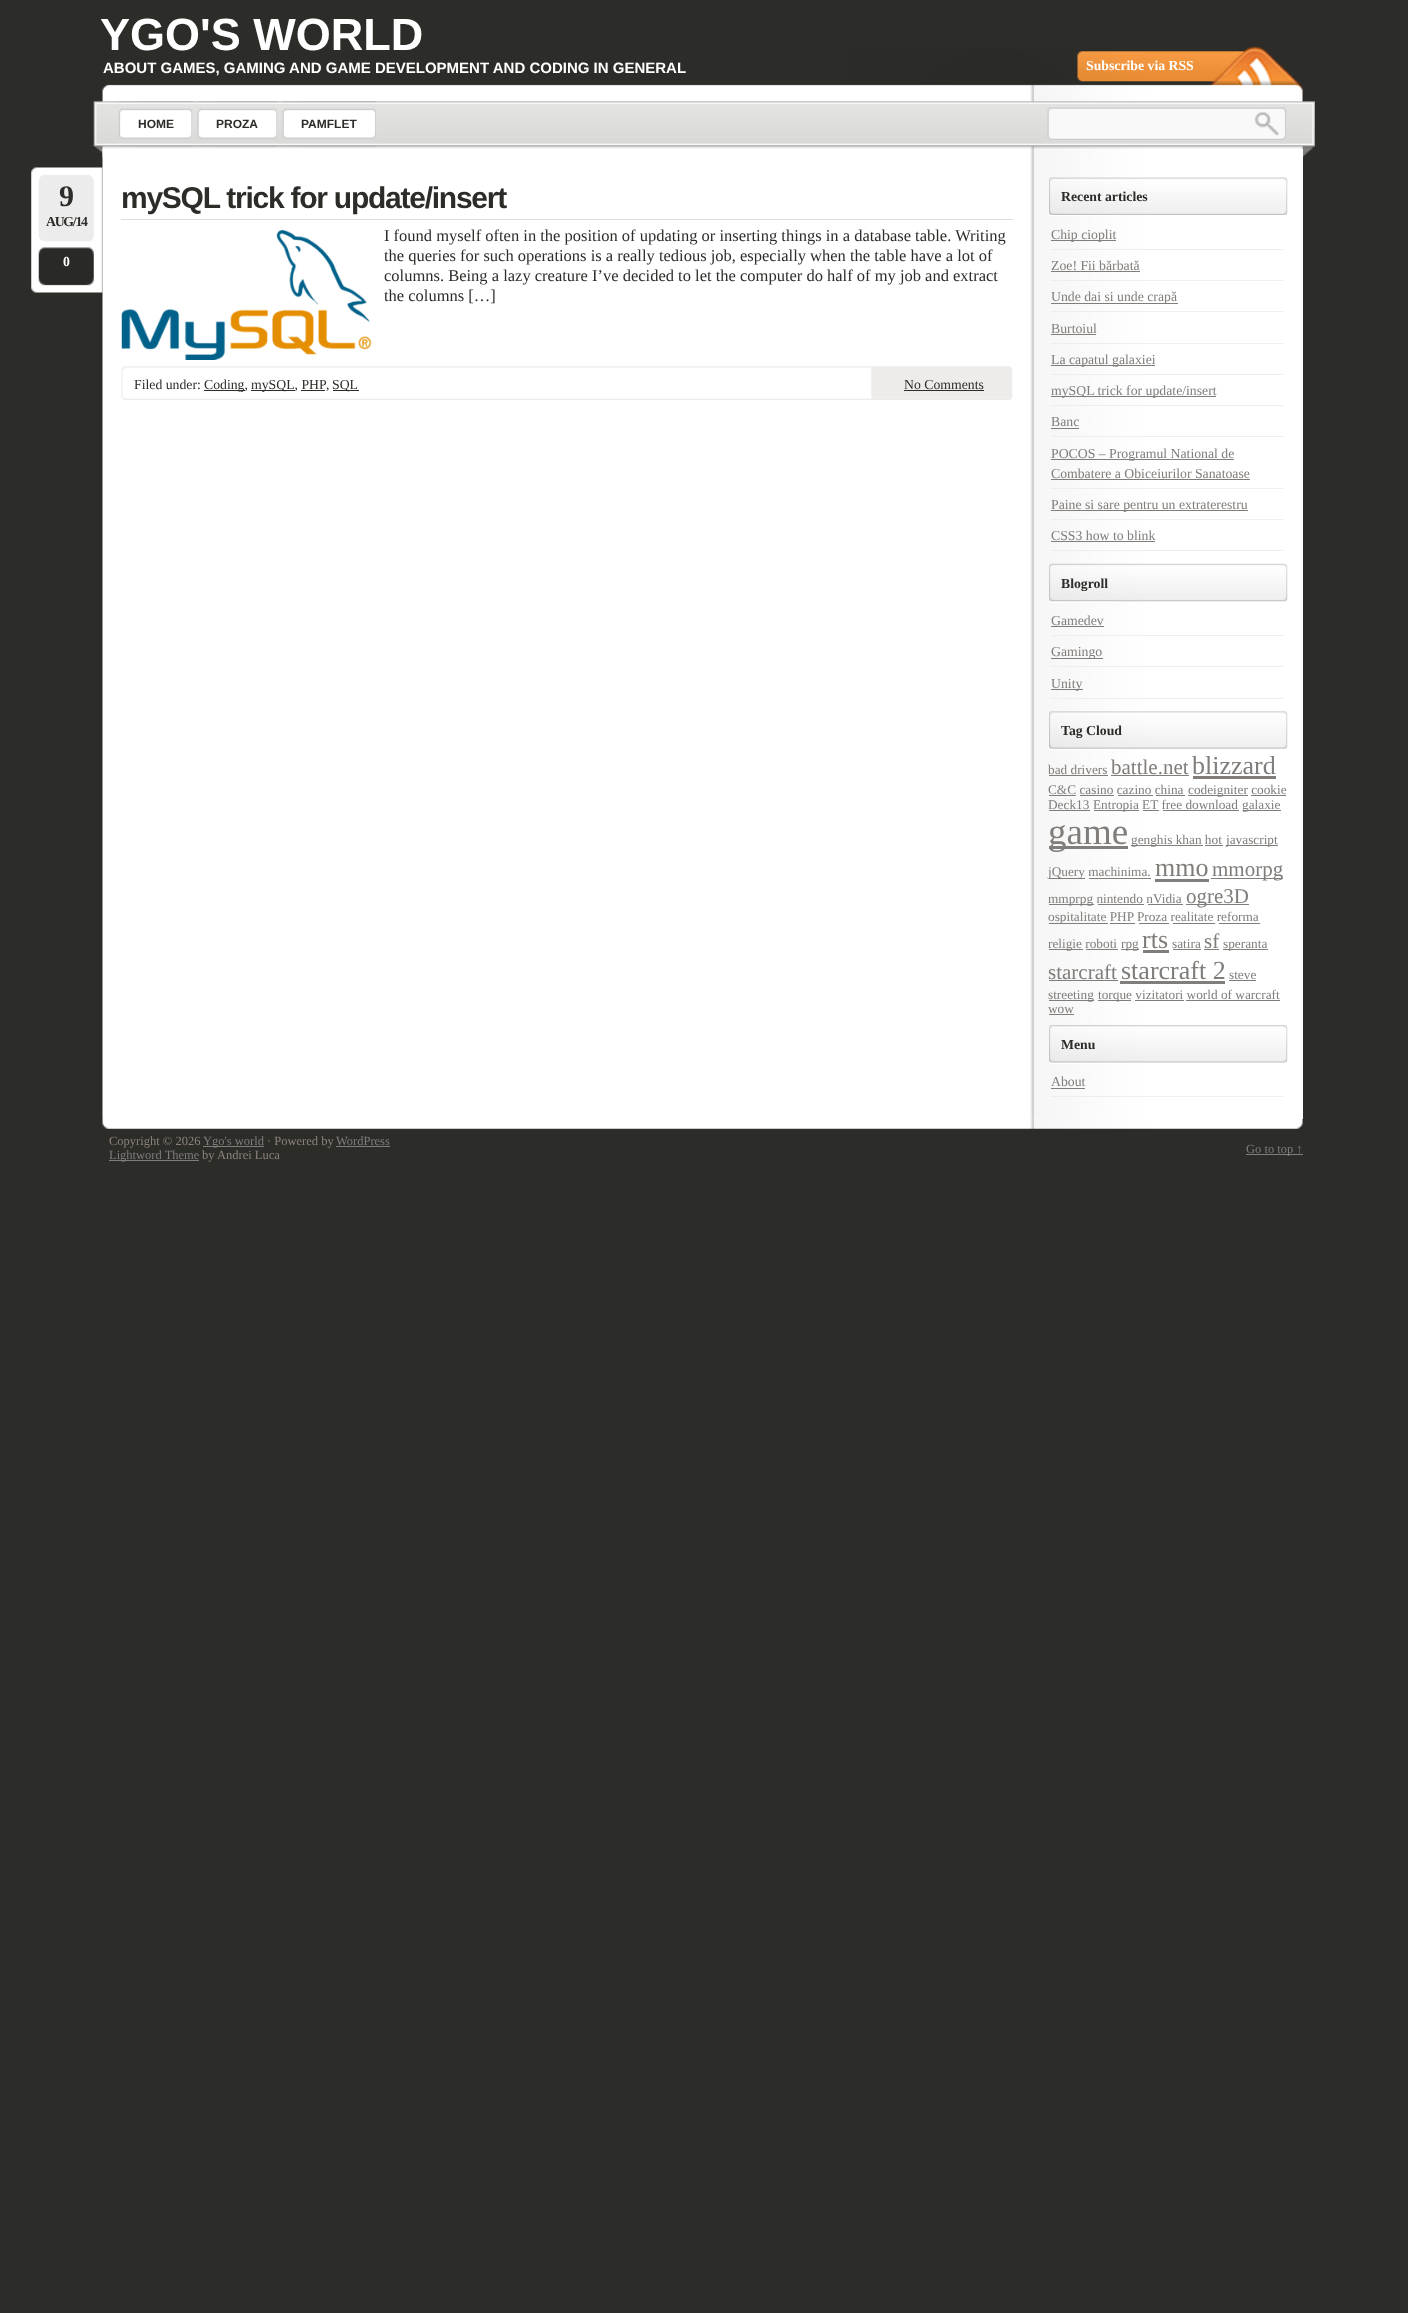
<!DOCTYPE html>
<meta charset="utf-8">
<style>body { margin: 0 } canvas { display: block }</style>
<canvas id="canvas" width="1408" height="2313"></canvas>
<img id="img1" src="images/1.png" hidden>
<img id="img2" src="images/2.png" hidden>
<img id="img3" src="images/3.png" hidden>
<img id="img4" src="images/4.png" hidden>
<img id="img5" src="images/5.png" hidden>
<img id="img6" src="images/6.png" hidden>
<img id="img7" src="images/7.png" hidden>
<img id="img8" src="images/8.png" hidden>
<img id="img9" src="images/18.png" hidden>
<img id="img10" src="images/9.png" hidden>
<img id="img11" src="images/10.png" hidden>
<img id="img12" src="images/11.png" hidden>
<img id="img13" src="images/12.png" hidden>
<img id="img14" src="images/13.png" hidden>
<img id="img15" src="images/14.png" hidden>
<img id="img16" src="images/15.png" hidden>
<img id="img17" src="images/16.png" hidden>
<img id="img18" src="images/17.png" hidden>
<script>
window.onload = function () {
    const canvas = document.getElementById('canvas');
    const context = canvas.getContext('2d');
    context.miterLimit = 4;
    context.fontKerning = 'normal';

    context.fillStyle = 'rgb(44, 44, 41)';
    context.fillRect(0, 0, 1408, 2313);
    context.drawImage(document.getElementById('img1'), 93, 46, 1222, 112);
    context.drawImage(document.getElementById('img2'), 118, 101, 75, 46);
    context.drawImage(document.getElementById('img3'), 138, 101, 55, 46);
    context.drawImage(document.getElementById('img4'), 197, 101, 81, 46);
    context.drawImage(document.getElementById('img5'), 216, 101, 62, 46);
    context.drawImage(document.getElementById('img6'), 282, 101, 95, 46);
    context.drawImage(document.getElementById('img7'), 301, 101, 76, 46);
    context.drawImage(document.getElementById('img8'), 1047, 107, 240, 33);
    context.drawImage(document.getElementById('img9'), 102, 1118, 1201, 11);
    context.fillStyle = 'rgb(255, 255, 255)';
    context.fillRect(103, 149, 1200, 970);
    context.drawImage(document.getElementById('img10'), 102, 148, 1201, 971);
    context.drawImage(document.getElementById('img11'), 31, 167, 72, 126);
    context.fillStyle = 'rgb(220, 220, 219)';
    context.fillRect(121, 219, 892, 1);
    context.drawImage(document.getElementById('img12'), 121, 230, 251, 130);
    context.drawImage(document.getElementById('img13'), 121, 366, 892, 32);
    context.fillStyle = 'rgb(44, 44, 41)';
    context.fillRect(204, 390, 41, 1);
    context.fillRect(251, 390, 44, 1);
    context.fillRect(333, 390, 26, 1);
    context.fillRect(301, 390, 24, 1);
    context.fillRect(904, 390, 80, 1);
    context.drawImage(document.getElementById('img14'), 122, 397, 890, 3);
    context.fillStyle = 'rgb(255, 255, 255)';
    context.fillRect(1049, 178, 68, 38);
    context.drawImage(document.getElementById('img15'), 1049, 177, 239, 38);
    context.fillStyle = 'rgb(238, 238, 238)';
    context.fillRect(1051, 249, 232, 1);
    context.fillStyle = 'rgb(128, 125, 122)';
    context.fillRect(1051, 240, 65, 1);
    context.fillStyle = 'rgb(238, 238, 238)';
    context.fillRect(1051, 280, 232, 1);
    context.fillStyle = 'rgb(128, 125, 122)';
    context.fillRect(1051, 271, 89, 1);
    context.fillStyle = 'rgb(238, 238, 238)';
    context.fillRect(1051, 311, 232, 1);
    context.fillStyle = 'rgb(128, 125, 122)';
    context.fillRect(1051, 303, 127, 1);
    context.fillStyle = 'rgb(238, 238, 238)';
    context.fillRect(1051, 343, 232, 1);
    context.fillStyle = 'rgb(128, 125, 122)';
    context.fillRect(1051, 334, 45, 1);
    context.fillStyle = 'rgb(238, 238, 238)';
    context.fillRect(1051, 374, 232, 1);
    context.fillStyle = 'rgb(128, 125, 122)';
    context.fillRect(1051, 365, 104, 1);
    context.fillStyle = 'rgb(238, 238, 238)';
    context.fillRect(1051, 405, 232, 1);
    context.fillStyle = 'rgb(128, 125, 122)';
    context.fillRect(1051, 396, 165, 1);
    context.fillStyle = 'rgb(238, 238, 238)';
    context.fillRect(1051, 436, 232, 1);
    context.fillStyle = 'rgb(128, 125, 122)';
    context.fillRect(1051, 428, 28, 1);
    context.fillStyle = 'rgb(238, 238, 238)';
    context.fillRect(1051, 488, 232, 1);
    context.fillStyle = 'rgb(128, 125, 122)';
    context.fillRect(1051, 459, 183, 1);
    context.fillRect(1051, 479, 199, 1);
    context.fillStyle = 'rgb(238, 238, 238)';
    context.fillRect(1051, 519, 232, 1);
    context.fillStyle = 'rgb(128, 125, 122)';
    context.fillRect(1051, 510, 197, 1);
    context.fillStyle = 'rgb(238, 238, 238)';
    context.fillRect(1051, 550, 232, 1);
    context.fillStyle = 'rgb(128, 125, 122)';
    context.fillRect(1051, 541, 104, 1);
    context.fillStyle = 'rgb(255, 255, 255)';
    context.fillRect(1049, 564, 68, 39);
    context.drawImage(document.getElementById('img16'), 1049, 563, 239, 39);
    context.fillStyle = 'rgb(238, 238, 238)';
    context.fillRect(1051, 635, 232, 1);
    context.fillStyle = 'rgb(128, 125, 122)';
    context.fillRect(1051, 626, 53, 1);
    context.fillStyle = 'rgb(238, 238, 238)';
    context.fillRect(1051, 666, 232, 1);
    context.fillStyle = 'rgb(128, 125, 122)';
    context.fillRect(1051, 658, 52, 1);
    context.fillStyle = 'rgb(238, 238, 238)';
    context.fillRect(1051, 698, 232, 1);
    context.fillStyle = 'rgb(128, 125, 122)';
    context.fillRect(1051, 689, 32, 1);
    context.fillStyle = 'rgb(255, 255, 255)';
    context.fillRect(1049, 711, 68, 39);
    context.drawImage(document.getElementById('img17'), 1049, 711, 239, 38);
    context.fillStyle = 'rgb(128, 125, 122)';
    context.fillRect(1049, 775, 59, 1);
    context.fillRect(1111, 775, 78, 1);
    context.fillRect(1193, 776, 83, 3);
    context.fillRect(1049, 795, 27, 1);
    context.fillRect(1188, 795, 60, 1);
    context.fillRect(1080, 795, 34, 1);
    context.fillRect(1118, 795, 35, 1);
    context.fillRect(1156, 795, 29, 1);
    context.fillRect(1251, 795, 35, 1);
    context.fillRect(1049, 810, 41, 1);
    context.fillRect(1094, 810, 45, 1);
    context.fillRect(1243, 810, 38, 1);
    context.fillRect(1143, 810, 16, 1);
    context.fillRect(1163, 810, 76, 1);
    context.fillRect(1049, 846, 79, 3);
    context.fillRect(1131, 845, 72, 1);
    context.fillRect(1226, 845, 52, 1);
    context.fillRect(1205, 845, 18, 1);
    context.fillRect(1049, 878, 36, 1);
    context.fillRect(1155, 879, 54, 3);
    context.fillRect(1211, 878, 72, 1);
    context.fillRect(1089, 878, 62, 1);
    context.fillRect(1049, 904, 45, 1);
    context.fillRect(1186, 904, 63, 1);
    context.fillRect(1098, 904, 46, 1);
    context.fillRect(1148, 904, 35, 1);
    context.fillRect(1049, 923, 59, 1);
    context.fillRect(1110, 923, 25, 1);
    context.fillRect(1139, 923, 30, 1);
    context.fillRect(1173, 923, 42, 1);
    context.fillRect(1219, 923, 41, 1);
    context.fillRect(1049, 949, 34, 1);
    context.fillRect(1121, 949, 18, 1);
    context.fillRect(1143, 950, 26, 3);
    context.fillRect(1173, 949, 28, 1);
    context.fillRect(1204, 949, 15, 1);
    context.fillRect(1223, 949, 45, 1);
    context.fillRect(1086, 949, 32, 1);
    context.fillRect(1049, 980, 69, 1);
    context.fillRect(1120, 981, 105, 3);
    context.fillRect(1229, 980, 27, 1);
    context.fillRect(1049, 1000, 45, 1);
    context.fillRect(1098, 1000, 33, 1);
    context.fillRect(1135, 1000, 49, 1);
    context.fillRect(1186, 1000, 94, 1);
    context.fillRect(1049, 1014, 25, 1);
    context.fillStyle = 'rgb(255, 255, 255)';
    context.fillRect(1049, 1025, 68, 39);
    context.drawImage(document.getElementById('img18'), 1049, 1025, 239, 38);
    context.fillStyle = 'rgb(238, 238, 238)';
    context.fillRect(1051, 1096, 232, 1);
    context.fillStyle = 'rgb(128, 125, 122)';
    context.fillRect(1051, 1088, 34, 1);
    context.fillRect(203, 1146, 61, 1);
    context.fillRect(336, 1146, 54, 1);
    context.fillRect(109, 1160, 90, 1);
    context.fillRect(1246, 1154, 57, 1);
    context.font = 'bold 45px Liberation Sans';
    context.fillStyle = 'rgb(255, 255, 255)';
    context.fillText('YGO\'S WORLD', 100, 50);
    context.font = 'bold 15px Liberation Sans';
    context.fillText('ABOUT GAMES, GAMING AND GAME DEVELOPMENT AND CODING IN GENERAL', 103, 73);
    context.font = 'bold 13.75px Liberation Serif';
    context.fillText('Subscribe via RSS', 1086, 70);
    context.font = 'bold 12px Liberation Sans';
    context.fillStyle = 'rgb(44, 44, 41)';
    context.fillText('HOME', 138, 128);
    context.fillText('PROZA', 216, 128);
    context.fillText('PAMFLET', 301, 128);
    context.letterSpacing = '-1.25px';
    context.font = 'bold 30px Liberation Serif';
    context.fillText('9', 59, 206);
    context.font = 'bold 13.75px Liberation Serif';
    context.fillText('AUG/14', 46, 226);
    context.letterSpacing = '0px';
    context.fillStyle = 'rgb(255, 255, 255)';
    context.fillText('0', 63, 266);
    context.letterSpacing = '-1.25px';
    context.font = 'bold 30px Liberation Sans';
    context.fillStyle = 'rgb(44, 44, 41)';
    context.fillText('mySQL trick for update/insert', 121, 208);
    context.letterSpacing = '0px';
    context.font = '16.5px Liberation Serif';
    context.fillText('I found myself often in the position of updating or inserting things in a database table. Writing', 384, 241);
    context.fillText('the queries for such operations is a really tedious job, especially when the table have a lot of', 384, 261);
    context.fillText('columns. Being a lazy creature I’ve decided to let the computer do half of my job and extract', 384, 281);
    context.fillText('the columns […]', 384, 301);
    context.font = '13.75px Liberation Serif';
    context.fillText('Filed under:', 134, 389);
    context.fillText('Coding,', 204, 389);
    context.fillText('mySQL, PHP', 251, 389);
    context.fillText(',', 326, 389);
    context.fillText('SQL', 332, 389);
    context.fillText('No Comments', 904, 389);
    context.font = 'bold 13.75px Liberation Serif';
    context.fillText('Recent articles', 1061, 201);
    context.font = '13.75px Liberation Serif';
    context.fillStyle = 'rgb(128, 125, 122)';
    context.fillText('Chip cioplit', 1051, 239);
    context.fillText('Zoe! Fii bărbată', 1051, 270);
    context.fillText('Unde dai si unde crapă', 1051, 301);
    context.fillText('Burtoiul', 1051, 333);
    context.fillText('La capatul galaxiei', 1051, 364);
    context.fillText('mySQL trick for update/insert', 1051, 395);
    context.fillText('Banc', 1051, 426);
    context.fillText('POCOS – Programul National de', 1051, 458);
    context.fillText('Combatere a Obiceiurilor Sanatoase', 1051, 478);
    context.fillText('Paine si sare pentru un extraterestru', 1051, 509);
    context.fillText('CSS3 how to blink', 1051, 540);
    context.font = 'bold 13.75px Liberation Serif';
    context.fillStyle = 'rgb(44, 44, 41)';
    context.fillText('Blogroll', 1061, 588);
    context.font = '13.75px Liberation Serif';
    context.fillStyle = 'rgb(128, 125, 122)';
    context.fillText('Gamedev', 1051, 625);
    context.fillText('Gamingo', 1051, 656);
    context.fillText('Unity', 1051, 688);
    context.font = 'bold 13.75px Liberation Serif';
    context.fillStyle = 'rgb(44, 44, 41)';
    context.fillText('Tag Cloud', 1061, 735);
    context.font = '13.3px Liberation Serif';
    context.fillStyle = 'rgb(128, 125, 122)';
    context.fillText('bad drivers', 1048, 774);
    context.font = '21px Liberation Serif';
    context.fillText('battle.net', 1111, 774);
    context.font = '26px Liberation Serif';
    context.fillText('blizzard', 1192, 774);
    context.font = '13.3px Liberation Serif';
    context.fillText('C&C casino cazino china', 1048, 794);
    context.fillText('codeigniter cookie', 1188, 794);
    context.fillText('Deck13', 1048, 809);
    context.fillText('Entropia ET free download', 1093, 809);
    context.fillText('galaxie', 1242, 809);
    context.font = '37px Liberation Serif';
    context.fillText('game', 1048, 844);
    context.font = '13.3px Liberation Serif';
    context.fillText('genghis khan hot', 1131, 844);
    context.fillText('javascript', 1226, 844);
    context.fillText('jQuery machinima.', 1048, 876);
    context.font = '26px Liberation Serif';
    context.fillText('mmo', 1155, 876);
    context.font = '21px Liberation Serif';
    context.fillText('mmorpg', 1212, 876);
    context.font = '13.3px Liberation Serif';
    context.fillText('mmprpg nintendo nVidia', 1048, 903);
    context.font = '21px Liberation Serif';
    context.fillText('ogre3D', 1186, 903);
    context.font = '13.3px Liberation Serif';
    context.fillText('ospitalitate PHP Proza realitate reforma', 1048, 921);
    context.fillText('religie roboti', 1048, 948);
    context.fillText('rpg', 1121, 948);
    context.font = '26px Liberation Serif';
    context.fillText('rts', 1142, 948);
    context.font = '13.3px Liberation Serif';
    context.fillText('satira', 1172, 948);
    context.font = '21px Liberation Serif';
    context.fillText('sf', 1204, 948);
    context.font = '13.3px Liberation Serif';
    context.fillText('speranta', 1223, 948);
    context.font = '21px Liberation Serif';
    context.fillText('starcraft', 1048, 979);
    context.font = '26px Liberation Serif';
    context.fillText('starcraft 2', 1121, 979);
    context.font = '13.3px Liberation Serif';
    context.fillText('steve', 1229, 979);
    context.fillText('streeting', 1048, 999);
    context.fillText('torque vizitatori world of warcraft', 1098, 999);
    context.fillText('wow', 1048, 1013);
    context.font = 'bold 13.75px Liberation Serif';
    context.fillStyle = 'rgb(44, 44, 41)';
    context.fillText('Menu', 1061, 1049);
    context.font = '13.75px Liberation Serif';
    context.fillStyle = 'rgb(128, 125, 122)';
    context.fillText('About', 1051, 1086);
    context.font = '12.5px Liberation Serif';
    context.fillStyle = 'rgb(141, 131, 123)';
    context.fillText('Copyright © 2026', 109, 1145);
    context.fillStyle = 'rgb(128, 125, 122)';
    context.fillText('Ygo\'s world', 203, 1145);
    context.fillStyle = 'rgb(141, 131, 123)';
    context.fillText('· Powered by', 267, 1145);
    context.fillStyle = 'rgb(128, 125, 122)';
    context.fillText('WordPress', 336, 1145);
    context.fillText('Lightword Theme', 109, 1159);
    context.fillStyle = 'rgb(141, 131, 123)';
    context.fillText('by Andrei Luca', 202, 1159);
    context.fillStyle = 'rgb(128, 125, 122)';
    context.fillText('Go to top ↑', 1246, 1153);
};
</script>
